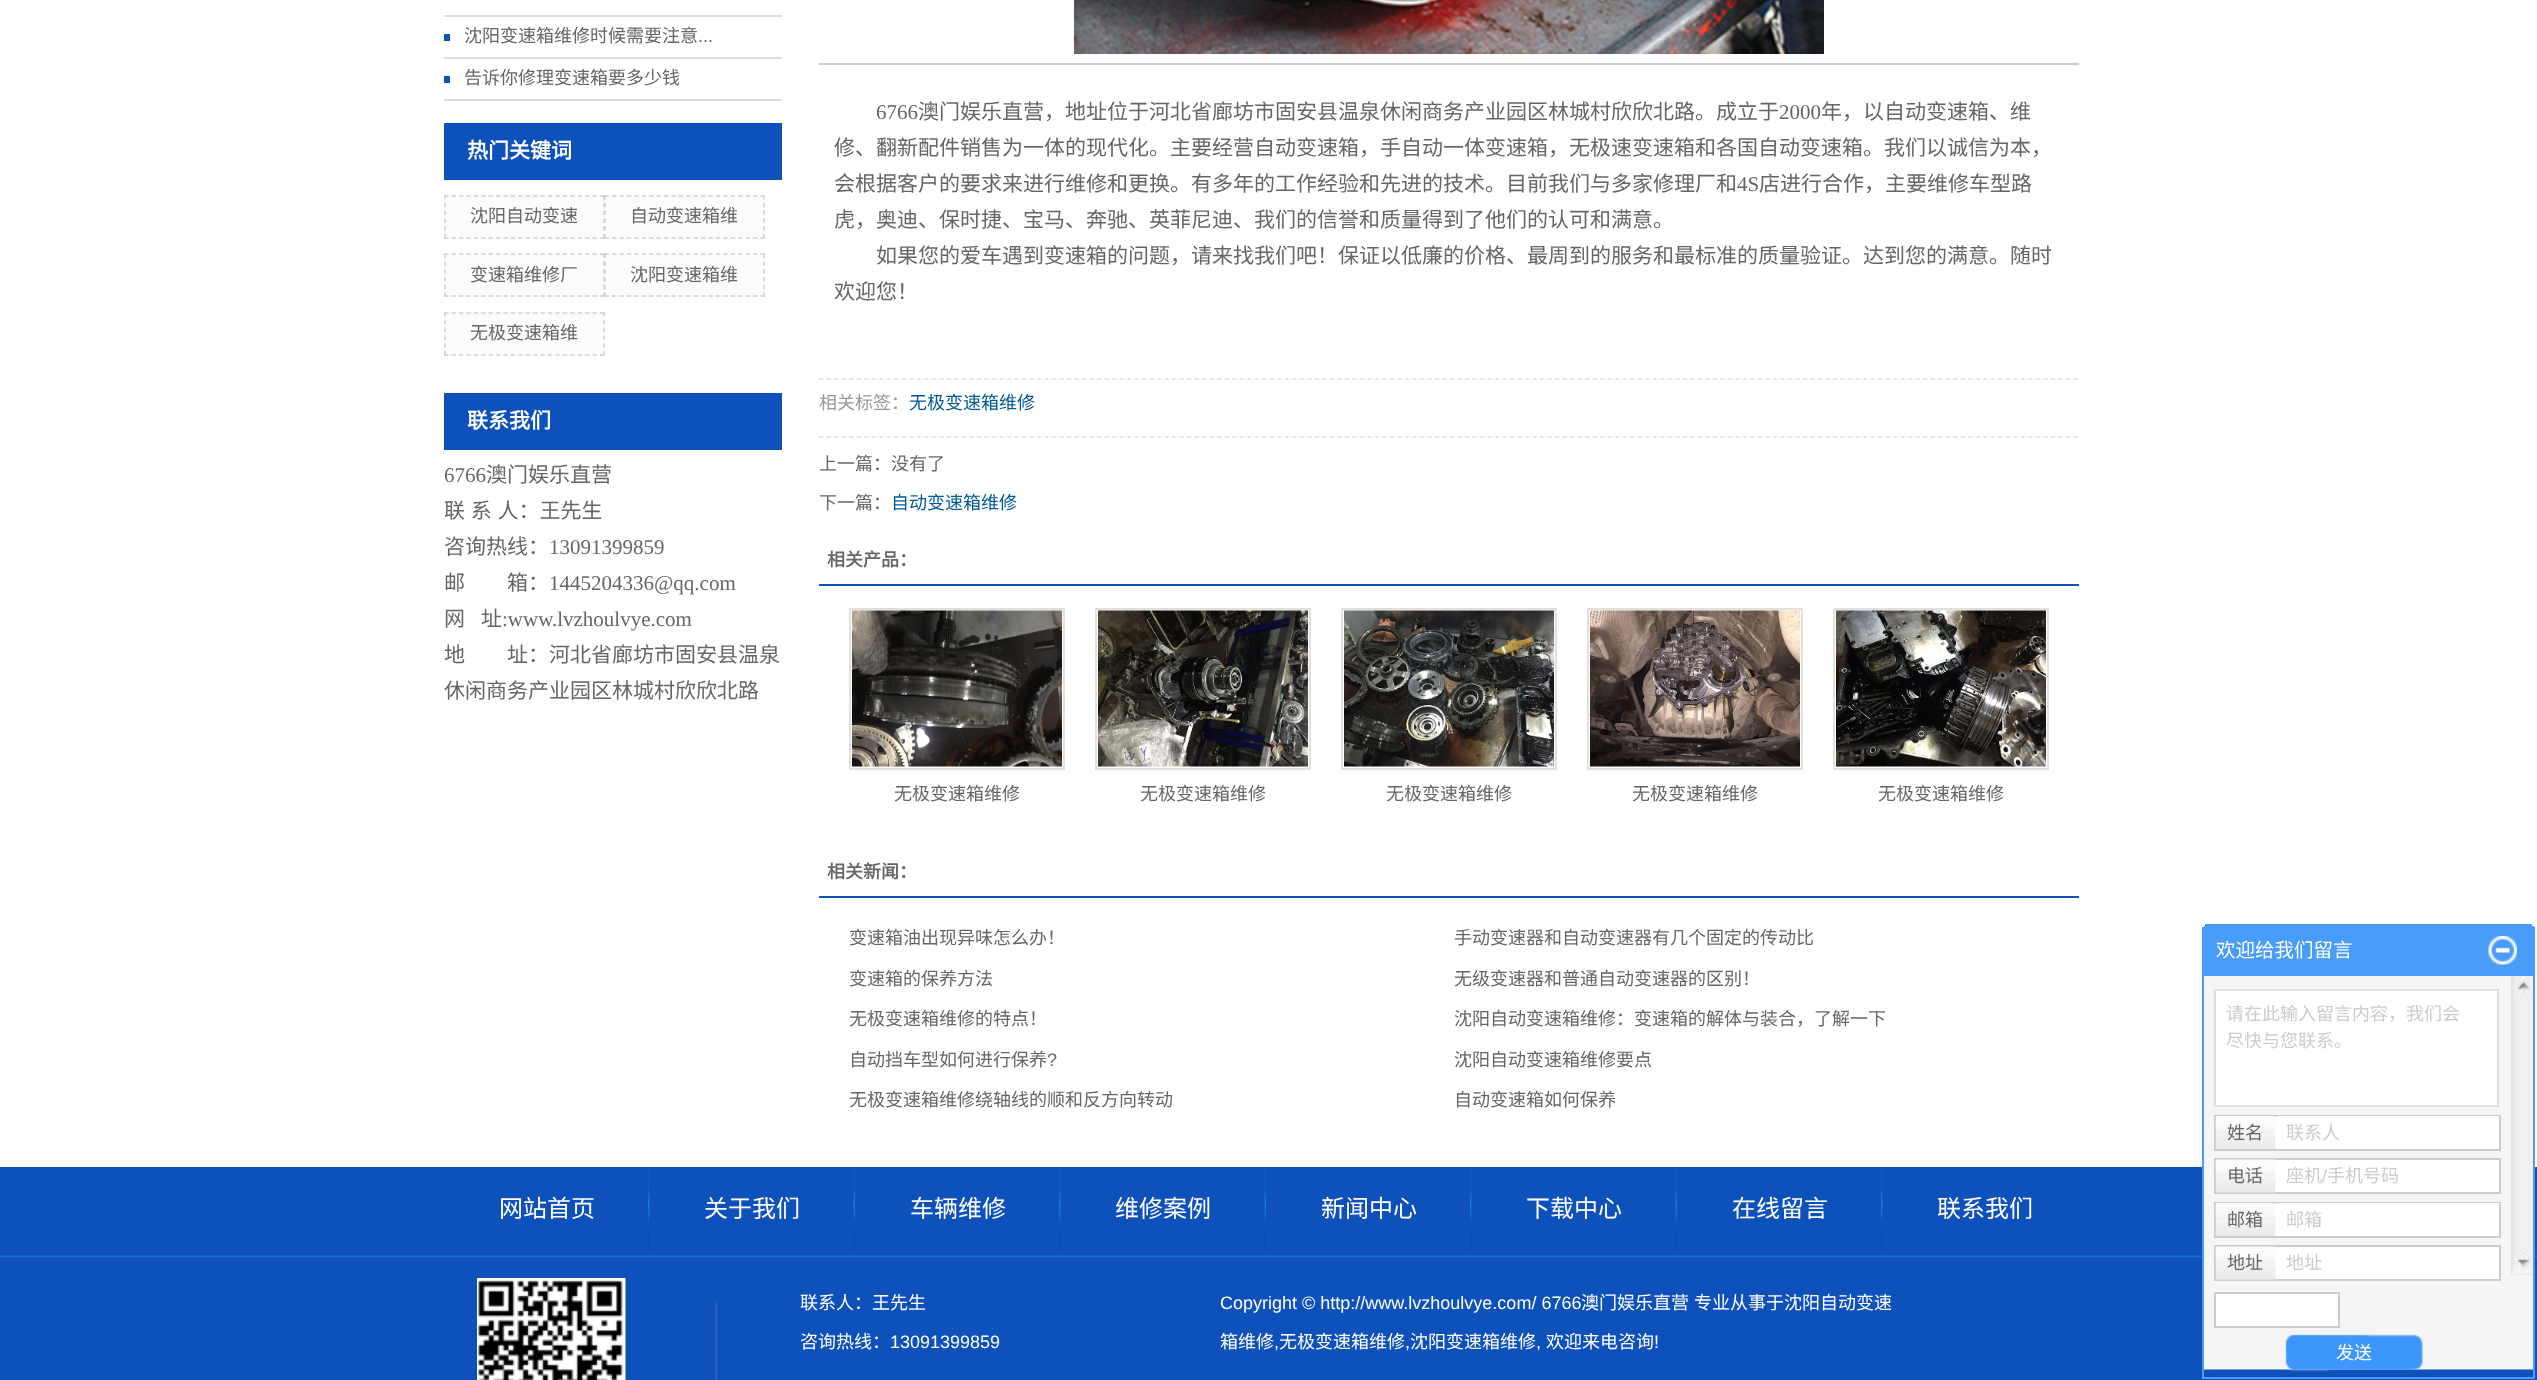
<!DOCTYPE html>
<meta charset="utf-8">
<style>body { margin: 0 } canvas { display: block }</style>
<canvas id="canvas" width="2537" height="1380"></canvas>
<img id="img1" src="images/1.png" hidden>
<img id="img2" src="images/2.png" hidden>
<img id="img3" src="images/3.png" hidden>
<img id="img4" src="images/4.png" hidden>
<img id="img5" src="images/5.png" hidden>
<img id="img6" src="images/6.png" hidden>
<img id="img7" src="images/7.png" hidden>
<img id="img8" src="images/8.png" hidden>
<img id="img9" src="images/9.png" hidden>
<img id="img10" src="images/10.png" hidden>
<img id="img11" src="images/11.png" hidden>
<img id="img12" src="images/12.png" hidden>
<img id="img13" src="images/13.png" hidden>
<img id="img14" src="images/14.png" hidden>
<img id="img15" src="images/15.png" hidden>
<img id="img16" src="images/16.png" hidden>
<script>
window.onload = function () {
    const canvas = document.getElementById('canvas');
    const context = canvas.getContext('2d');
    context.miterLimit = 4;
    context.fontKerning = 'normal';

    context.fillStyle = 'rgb(255, 255, 255)';
    context.fillRect(0, 0, 2537, 1380);
    context.fillStyle = 'rgb(221, 221, 221)';
    context.fillRect(444, 15, 338, 2);
    context.fillStyle = 'rgb(15, 81, 187)';
    context.fillRect(444, 34, 6, 7);
    context.fillStyle = 'rgb(221, 221, 221)';
    context.fillRect(444, 57, 338, 2);
    context.fillStyle = 'rgb(15, 81, 187)';
    context.fillRect(444, 76, 6, 7);
    context.fillStyle = 'rgb(221, 221, 221)';
    context.fillRect(444, 99, 338, 2);
    context.fillStyle = 'rgb(15, 81, 187)';
    context.fillRect(444, 123, 338, 57);
    context.fillStyle = 'rgb(252, 252, 252)';
    context.fillRect(444, 195, 321, 44);
    context.beginPath();
    context.moveTo(444, 196);
    context.lineTo(604.5, 196);
    context.strokeStyle = 'rgb(208, 208, 208)';
    context.lineWidth = 1.5;
    context.setLineDash([4.5, 2.92]);
    context.stroke();
    context.beginPath();
    context.moveTo(604, 195);
    context.lineTo(604, 238.5);
    context.setLineDash([4.5, 3.3]);
    context.stroke();
    context.beginPath();
    context.moveTo(444, 238);
    context.lineTo(604.5, 238);
    context.setLineDash([4.5, 2.92]);
    context.stroke();
    context.beginPath();
    context.moveTo(445, 195);
    context.lineTo(445, 238.5);
    context.setLineDash([4.5, 3.3]);
    context.stroke();
    context.beginPath();
    context.moveTo(604.5, 196);
    context.lineTo(765, 196);
    context.setLineDash([4.5, 2.92]);
    context.stroke();
    context.beginPath();
    context.moveTo(764, 195);
    context.lineTo(764, 238.5);
    context.setLineDash([4.5, 3.3]);
    context.stroke();
    context.beginPath();
    context.moveTo(604.5, 238);
    context.lineTo(765, 238);
    context.setLineDash([4.5, 2.92]);
    context.stroke();
    context.beginPath();
    context.moveTo(605, 195);
    context.lineTo(605, 238.5);
    context.setLineDash([4.5, 3.3]);
    context.stroke();
    context.fillRect(444, 254, 321, 43);
    context.beginPath();
    context.moveTo(444, 254);
    context.lineTo(604.5, 254);
    context.setLineDash([4.5, 2.92]);
    context.stroke();
    context.beginPath();
    context.moveTo(604, 253.5);
    context.lineTo(604, 297);
    context.setLineDash([4.5, 3.3]);
    context.stroke();
    context.beginPath();
    context.moveTo(444, 296);
    context.lineTo(604.5, 296);
    context.setLineDash([4.5, 2.92]);
    context.stroke();
    context.beginPath();
    context.moveTo(445, 253.5);
    context.lineTo(445, 297);
    context.setLineDash([4.5, 3.3]);
    context.stroke();
    context.beginPath();
    context.moveTo(604.5, 254);
    context.lineTo(765, 254);
    context.setLineDash([4.5, 2.92]);
    context.stroke();
    context.beginPath();
    context.moveTo(764, 253.5);
    context.lineTo(764, 297);
    context.setLineDash([4.5, 3.3]);
    context.stroke();
    context.beginPath();
    context.moveTo(604.5, 296);
    context.lineTo(765, 296);
    context.setLineDash([4.5, 2.92]);
    context.stroke();
    context.beginPath();
    context.moveTo(605, 253.5);
    context.lineTo(605, 297);
    context.setLineDash([4.5, 3.3]);
    context.stroke();
    context.fillRect(444, 312, 161, 44);
    context.beginPath();
    context.moveTo(444, 313);
    context.lineTo(604.5, 313);
    context.setLineDash([4.5, 2.92]);
    context.stroke();
    context.beginPath();
    context.moveTo(604, 312);
    context.lineTo(604, 355.5);
    context.setLineDash([4.5, 3.3]);
    context.stroke();
    context.beginPath();
    context.moveTo(444, 355);
    context.lineTo(604.5, 355);
    context.setLineDash([4.5, 2.92]);
    context.stroke();
    context.beginPath();
    context.moveTo(445, 312);
    context.lineTo(445, 355.5);
    context.setLineDash([4.5, 3.3]);
    context.stroke();
    context.fillStyle = 'rgb(15, 81, 187)';
    context.fillRect(444, 393, 338, 57);
    context.drawImage(document.getElementById('img1'), 1074, 0, 750, 54);
    context.fillStyle = 'rgb(204, 204, 204)';
    context.fillRect(819, 63, 1260, 2);
    context.beginPath();
    context.moveTo(819, 379);
    context.lineTo(2079, 379);
    context.strokeStyle = 'rgb(224, 225, 220)';
    context.setLineDash([4.5, 3.01]);
    context.stroke();
    context.beginPath();
    context.moveTo(819, 437);
    context.lineTo(2079, 437);
    context.stroke();
    context.fillStyle = 'rgb(15, 81, 187)';
    context.fillRect(819, 584, 1260, 2);
    context.lineWidth = 2;
    context.setLineDash([]);
    context.strokeRect(850, 609, 214, 160);
    context.drawImage(document.getElementById('img2'), 852, 610, 210, 157);
    context.strokeRect(1096, 609, 214, 160);
    context.drawImage(document.getElementById('img3'), 1098, 610, 210, 157);
    context.strokeRect(1342, 609, 214, 160);
    context.drawImage(document.getElementById('img4'), 1344, 610, 210, 157);
    context.strokeRect(1588, 609, 214, 160);
    context.drawImage(document.getElementById('img5'), 1590, 610, 210, 157);
    context.strokeRect(1834, 609, 214, 160);
    context.drawImage(document.getElementById('img6'), 1836, 610, 210, 157);
    context.fillRect(819, 896, 1260, 2);
    context.drawImage(document.getElementById('img7'), 0, 1167, 2537, 213);
    context.drawImage(document.getElementById('img8'), 648, 1168, 2, 85);
    context.drawImage(document.getElementById('img9'), 853, 1168, 2, 85);
    context.drawImage(document.getElementById('img8'), 1059, 1168, 2, 85);
    context.drawImage(document.getElementById('img9'), 1264, 1168, 2, 85);
    context.drawImage(document.getElementById('img8'), 1470, 1168, 2, 85);
    context.drawImage(document.getElementById('img9'), 1675, 1168, 2, 85);
    context.drawImage(document.getElementById('img8'), 1881, 1168, 2, 85);
    context.drawImage(document.getElementById('img10'), 477, 1278, 149, 102);
    context.fillStyle = 'rgb(74, 156, 249)';
    context.fillRect(2205, 924, 327, 2);
    context.fillRect(2204, 926, 330, 1);
    context.fillRect(2202, 927, 333, 47);
    context.drawImage(document.getElementById('img11'), 2488, 936, 29, 29);
    context.drawImage(document.getElementById('img12'), 2204, 976, 329, 394);
    context.strokeStyle = 'rgb(74, 156, 249)';
    context.strokeRect(2203, 975, 331, 403);
    context.fillStyle = 'rgb(255, 255, 255)';
    context.beginPath();
    context.rect(2215, 990, 283, 116);
    context.fill();
    context.strokeStyle = 'rgb(222, 222, 222)';
    context.stroke();
    context.fillRect(2275, 1117, 2, 32);
    context.strokeStyle = 'rgb(204, 204, 204)';
    context.strokeRect(2215, 1116, 285, 34);
    context.drawImage(document.getElementById('img13'), 2215, 1116, 61, 33);
    context.fillRect(2277, 1116, 222, 33);
    context.fillRect(2275, 1160, 224, 32);
    context.strokeRect(2215, 1159, 285, 34);
    context.drawImage(document.getElementById('img14'), 2215, 1159, 61, 34);
    context.fillRect(2275, 1204, 224, 32);
    context.strokeRect(2215, 1203, 285, 34);
    context.drawImage(document.getElementById('img13'), 2215, 1203, 61, 33);
    context.fillRect(2277, 1203, 222, 1);
    context.fillRect(2275, 1247, 224, 32);
    context.strokeRect(2215, 1246, 285, 34);
    context.drawImage(document.getElementById('img15'), 2215, 1246, 61, 34);
    context.beginPath();
    context.rect(2215, 1293, 124, 34);
    context.fill();
    context.stroke();
    context.drawImage(document.getElementById('img16'), 2285, 1334, 138, 38);
    context.font = '18px Noto Sans CJK SC';
    context.fillStyle = 'rgb(102, 102, 102)';
    context.fillText('沈阳变速箱维修时候需要注意', 464, 42);
    context.font = '18px Liberation Sans';
    context.fillText('...', 698, 42);
    context.font = '18px Noto Sans CJK SC';
    context.fillText('告诉你修理变速箱要多少钱', 464, 84);
    context.font = 'bold 21px Noto Sans CJK SC';
    context.fillStyle = 'rgb(255, 255, 255)';
    context.fillText('热门关键词', 467, 158);
    context.font = '18px Noto Sans CJK SC';
    context.fillStyle = 'rgb(102, 102, 102)';
    context.fillText('沈阳自动变速', 470, 222);
    context.fillText('自动变速箱维', 630, 222);
    context.fillText('变速箱维修厂', 470, 281);
    context.fillText('沈阳变速箱维', 630, 281);
    context.fillText('无极变速箱维', 470, 339);
    context.font = 'bold 21px Noto Sans CJK SC';
    context.fillStyle = 'rgb(255, 255, 255)';
    context.fillText('联系我们', 467, 428);
    context.font = '21px Liberation Serif';
    context.fillStyle = 'rgb(102, 102, 102)';
    context.fillText('6766', 444, 482);
    context.font = '21px Noto Sans CJK SC';
    context.fillText('澳门娱乐直营', 486, 482);
    context.wordSpacing = '1px';
    context.fillText('联 系 人：王先生', 444, 518);
    context.wordSpacing = '0px';
    context.fillText('咨询热线：', 444, 554);
    context.font = '21px Liberation Serif';
    context.fillText('13091399859', 549, 554);
    context.font = '21px Noto Sans CJK SC';
    context.fillText('邮　　箱：', 444, 590);
    context.font = '21px Liberation Serif';
    context.fillText('1445204336@qq.com', 549, 590);
    context.font = '21px Noto Sans CJK SC';
    context.fillText('网', 444, 626);
    context.fillText('址', 481, 626);
    context.font = '21px Liberation Serif';
    context.fillText(':www.lvzhoulvye.com', 502, 626);
    context.font = '21px Noto Sans CJK SC';
    context.fillText('地　　址：河北省廊坊市固安县温泉', 444, 662);
    context.fillText('休闲商务产业园区林城村欣欣北路', 444, 698);
    context.font = '21px Liberation Serif';
    context.fillText('6766', 876, 119);
    context.font = '21px Noto Sans CJK SC';
    context.fillText('澳门娱乐直营，地址位于河北省廊坊市固安县温泉休闲商务产业园区林城村欣欣北路。成立于', 918, 119);
    context.font = '21px Liberation Serif';
    context.fillText('2000', 1779, 119);
    context.font = '21px Noto Sans CJK SC';
    context.fillText('年，以自动变速箱、维', 1821, 119);
    context.fillText('修、翻新配件销售为一体的现代化。主要经营自动变速箱，手自动一体变速箱，无极速变速箱和各国自动变速箱。我们以诚信为本，', 834, 155);
    context.fillText('会根据客户的要求来进行维修和更换。有多年的工作经验和先进的技术。目前我们与多家修理厂和', 834, 191);
    context.font = '21px Liberation Serif';
    context.fillText('4S', 1737, 191);
    context.font = '21px Noto Sans CJK SC';
    context.fillText('店进行合作，主要维修车型路', 1759, 191);
    context.fillText('虎，奥迪、保时捷、宝马、奔驰、英菲尼迪、我们的信誉和质量得到了他们的认可和满意。', 834, 227);
    context.fillText('如果您的爱车遇到变速箱的问题，请来找我们吧！保证以低廉的价格、最周到的服务和最标准的质量验证。达到您的满意。随时', 876, 263);
    context.fillText('欢迎您！', 834, 299);
    context.font = '18px Noto Sans CJK SC';
    context.fillStyle = 'rgb(153, 153, 153)';
    context.fillText('相关标签：', 819, 409);
    context.fillStyle = 'rgb(0, 90, 152)';
    context.fillText('无极变速箱维修', 909, 409);
    context.fillStyle = 'rgb(102, 102, 102)';
    context.fillText('上一篇：没有了', 819, 470);
    context.fillText('下一篇：', 819, 509);
    context.fillStyle = 'rgb(0, 90, 152)';
    context.fillText('自动变速箱维修', 891, 509);
    context.font = 'bold 18px Noto Sans CJK SC';
    context.fillStyle = 'rgb(102, 102, 102)';
    context.fillText('相关产品：', 827, 566);
    context.font = '18px Noto Sans CJK SC';
    context.fillText('无极变速箱维修', 894, 800);
    context.fillText('无极变速箱维修', 1140, 800);
    context.fillText('无极变速箱维修', 1386, 800);
    context.fillText('无极变速箱维修', 1632, 800);
    context.fillText('无极变速箱维修', 1878, 800);
    context.font = 'bold 18px Noto Sans CJK SC';
    context.fillText('相关新闻：', 827, 878);
    context.font = '18px Noto Sans CJK SC';
    context.fillText('变速箱油出现异味怎么办！', 849, 944);
    context.fillText('手动变速器和自动变速器有几个固定的传动比', 1454, 944);
    context.fillText('变速箱的保养方法', 849, 985);
    context.fillText('无级变速器和普通自动变速器的区别！', 1454, 985);
    context.fillText('无极变速箱维修的特点！', 849, 1025);
    context.fillText('沈阳自动变速箱维修：变速箱的解体与装合，了解一下', 1454, 1025);
    context.fillText('自动挡车型如何进行保养', 849, 1066);
    context.font = '18px Liberation Sans';
    context.fillText('?', 1047, 1066);
    context.font = '18px Noto Sans CJK SC';
    context.fillText('沈阳自动变速箱维修要点', 1454, 1066);
    context.fillText('无极变速箱维修绕轴线的顺和反方向转动', 849, 1106);
    context.fillText('自动变速箱如何保养', 1454, 1106);
    context.font = '24px Noto Sans CJK SC';
    context.fillStyle = 'rgb(255, 255, 255)';
    context.fillText('网站首页', 499, 1217);
    context.fillText('关于我们', 704, 1217);
    context.fillText('车辆维修', 910, 1217);
    context.fillText('维修案例', 1115, 1217);
    context.fillText('新闻中心', 1321, 1217);
    context.fillText('下载中心', 1526, 1217);
    context.fillText('在线留言', 1732, 1217);
    context.fillText('联系我们', 1937, 1217);
    context.font = '18px Noto Sans CJK SC';
    context.fillText('联系人：王先生', 800, 1309);
    context.fillText('咨询热线：', 800, 1348);
    context.font = '18px Liberation Sans';
    context.fillText('13091399859', 890, 1348);
    context.fillText('Copyright © http://www.lvzhoulvye.com/ 6766', 1220, 1309);
    context.font = '18px Noto Sans CJK SC';
    context.fillText('澳门娱乐直营', 1581, 1309);
    context.fillText('专业从事于沈阳自动变速', 1694, 1309);
    context.fillText('箱维修', 1220, 1348);
    context.fillText('无极变速箱维修', 1279, 1348);
    context.fillText('沈阳变速箱维修', 1410, 1348);
    context.fillText('欢迎来电咨询', 1546, 1348);
    context.font = '18px Liberation Sans';
    context.fillText('!', 1654, 1348);
    context.fillText(',', 1274, 1348);
    context.fillText(',', 1405, 1348);
    context.fillText(',', 1536, 1348);
    context.font = '19.5px Noto Sans CJK SC';
    context.fillText('欢迎给我们留言', 2216, 957);
    context.font = '18px Noto Sans CJK SC';
    context.fillStyle = 'rgb(204, 204, 204)';
    context.fillText('请在此输入留言内容，我们会', 2226, 1020);
    context.fillText('尽快与您联系。', 2226, 1047);
    context.fillStyle = 'rgb(102, 102, 102)';
    context.fillText('姓名', 2227, 1139);
    context.fillStyle = 'rgb(204, 204, 204)';
    context.fillText('联系人', 2286, 1139);
    context.fillStyle = 'rgb(102, 102, 102)';
    context.fillText('电话', 2227, 1182);
    context.fillStyle = 'rgb(204, 204, 204)';
    context.fillText('座机', 2286, 1182);
    context.font = '18px Liberation Sans';
    context.fillText('/', 2322, 1182);
    context.font = '18px Noto Sans CJK SC';
    context.fillText('手机号码', 2327, 1182);
    context.fillStyle = 'rgb(102, 102, 102)';
    context.fillText('邮箱', 2227, 1226);
    context.fillStyle = 'rgb(204, 204, 204)';
    context.fillText('邮箱', 2286, 1226);
    context.fillStyle = 'rgb(102, 102, 102)';
    context.fillText('地址', 2227, 1269);
    context.fillStyle = 'rgb(204, 204, 204)';
    context.fillText('地址', 2286, 1269);
    context.fillStyle = 'rgb(255, 255, 255)';
    context.fillText('发送', 2336, 1359);
};
</script>
